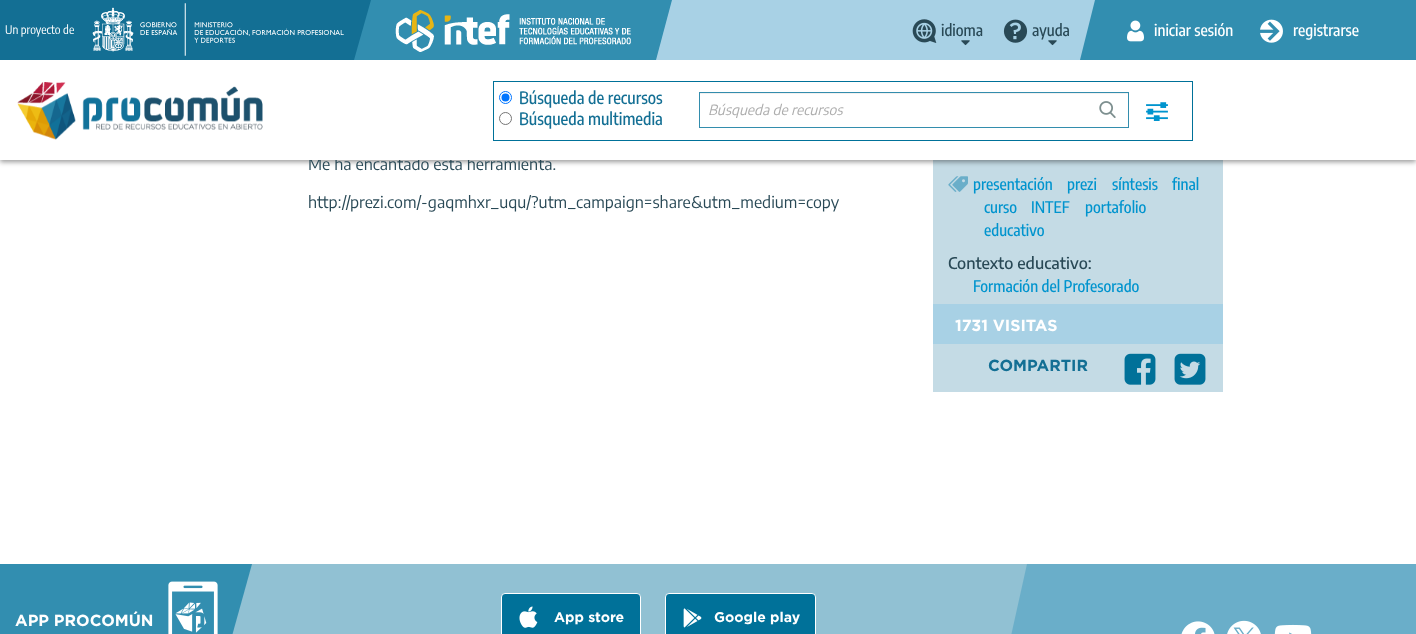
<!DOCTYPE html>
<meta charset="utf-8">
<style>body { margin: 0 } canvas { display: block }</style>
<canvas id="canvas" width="1416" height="634"></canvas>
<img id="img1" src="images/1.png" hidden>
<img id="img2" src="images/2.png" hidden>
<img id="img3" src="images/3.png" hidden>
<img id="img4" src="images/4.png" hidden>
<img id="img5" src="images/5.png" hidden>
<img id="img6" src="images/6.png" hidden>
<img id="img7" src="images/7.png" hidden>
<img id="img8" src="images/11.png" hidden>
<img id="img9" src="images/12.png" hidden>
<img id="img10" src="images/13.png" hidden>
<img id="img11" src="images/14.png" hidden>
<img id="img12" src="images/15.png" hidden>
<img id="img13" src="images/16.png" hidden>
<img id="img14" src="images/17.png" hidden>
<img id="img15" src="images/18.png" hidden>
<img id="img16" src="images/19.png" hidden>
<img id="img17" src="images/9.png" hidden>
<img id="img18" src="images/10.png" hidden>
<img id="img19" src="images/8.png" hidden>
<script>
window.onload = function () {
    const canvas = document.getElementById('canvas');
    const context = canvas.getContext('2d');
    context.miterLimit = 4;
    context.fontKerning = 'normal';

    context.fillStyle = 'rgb(255, 255, 255)';
    context.fillRect(0, 0, 1416, 634);
    context.fillStyle = 'rgb(196, 219, 229)';
    context.fillRect(933, 160, 290, 232);
    context.fillStyle = 'rgba(0, 0, 0, 0.4)';
    context.filter = 'blur(2.5px)';
    context.beginPath();
    context.rect(0, 2, 1416, 160);
    context.fill();
    context.filter = 'none';
    context.fillStyle = 'rgb(19, 111, 148)';
    context.fillRect(0, 0, 351, 60);
    context.drawImage(document.getElementById('img1'), 92, 3, 252, 53);
    context.fillStyle = 'rgb(50, 142, 176)';
    context.fillRect(354, 0, 318, 60);
    context.fillStyle = 'rgb(19, 111, 148)';
    context.beginPath();
    context.moveTo(351, 0);
    context.lineTo(371, 0);
    context.lineTo(354, 60);
    context.lineTo(351, 60);
    context.closePath();
    context.fill();
    context.drawImage(document.getElementById('img2'), 395, 10, 236, 42);
    context.fillStyle = 'rgb(168, 209, 229)';
    context.beginPath();
    context.moveTo(676, 60);
    context.lineTo(656, 60);
    context.lineTo(672, 0);
    context.lineTo(676, 0);
    context.closePath();
    context.fill();
    context.fillRect(676, 0, 419, 60);
    context.drawImage(document.getElementById('img3'), 912, 19, 25, 24);
    context.drawImage(document.getElementById('img4'), 961, 40, 9, 6);
    context.drawImage(document.getElementById('img5'), 1003, 19, 25, 24);
    context.drawImage(document.getElementById('img4'), 1048, 40, 9, 6);
    context.fillStyle = 'rgb(50, 142, 176)';
    context.beginPath();
    context.moveTo(1100, 60);
    context.lineTo(1080, 60);
    context.lineTo(1095, 0);
    context.lineTo(1100, 0);
    context.closePath();
    context.fill();
    context.fillRect(1100, 0, 316, 60);
    context.drawImage(document.getElementById('img6'), 1127, 20, 17, 22);
    context.drawImage(document.getElementById('img7'), 1260, 19, 23, 24);
    context.drawImage(document.getElementById('img8'), 948, 176, 20, 16);
    context.fillStyle = 'rgb(168, 209, 229)';
    context.fillRect(933, 304, 290, 40);
    context.drawImage(document.getElementById('img9'), 1124, 353, 32, 32);
    context.drawImage(document.getElementById('img10'), 1174, 353, 32, 32);
    context.fillStyle = 'rgb(145, 193, 211)';
    context.fillRect(232, 564, 795, 70);
    context.fillStyle = 'rgb(50, 142, 176)';
    context.beginPath();
    context.moveTo(-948, 564);
    context.lineTo(252, 564);
    context.lineTo(222, 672);
    context.lineTo(-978, 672);
    context.closePath();
    context.fill();
    context.fillStyle = 'rgb(106, 174, 201)';
    context.beginPath();
    context.moveTo(1027, 564);
    context.lineTo(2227, 564);
    context.lineTo(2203, 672);
    context.lineTo(1003, 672);
    context.closePath();
    context.fill();
    context.drawImage(document.getElementById('img11'), 1181, 621, 34, 13);
    context.drawImage(document.getElementById('img12'), 1227, 620, 34, 14);
    context.drawImage(document.getElementById('img13'), 1274, 624, 38, 10);
    context.drawImage(document.getElementById('img14'), 168, 581, 50, 53);
    context.fillStyle = 'rgb(0, 113, 153)';
    context.beginPath();
    context.roundRect(501.5, 593.5, 139, 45, 3.5);
    context.fill();
    context.strokeStyle = 'rgb(255, 255, 255)';
    context.stroke();
    context.drawImage(document.getElementById('img15'), 519, 606, 19, 22);
    context.beginPath();
    context.roundRect(665.5, 593.5, 150, 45, 3.5);
    context.fill();
    context.stroke();
    context.drawImage(document.getElementById('img16'), 683, 608, 19, 20);
    context.font = '12px Encode Sans Condensed';
    context.fillStyle = 'rgb(255, 255, 255)';
    context.fillText('Un proyecto de', 5, 34);
    context.font = '500 16px Encode Sans Condensed';
    context.fillStyle = 'rgb(41, 73, 86)';
    context.fillText('idioma', 941, 36);
    context.fillText('ayuda', 1032, 36);
    context.fillStyle = 'rgb(255, 255, 255)';
    context.fillText('iniciar sesión', 1154, 36);
    context.fillText('registrarse', 1293, 36);
    context.font = '16px Encode Sans';
    context.fillStyle = 'rgb(41, 73, 86)';
    context.fillText('Me ha encantado esta herramienta.', 308, 170);
    context.fillStyle = 'rgb(255, 255, 255)';
    context.fillRect(0, 60, 1416, 100);
    context.strokeStyle = 'rgb(0, 113, 153)';
    context.strokeRect(493.5, 81.5, 699, 59);
    context.fillStyle = 'rgb(240, 240, 240)';
    context.fillRect(700, 93, 428, 1);
    context.strokeStyle = 'rgb(51, 141, 173)';
    context.strokeRect(699.5, 92.5, 429, 35);
    context.drawImage(document.getElementById('img17'), 1099, 101, 17, 17);
    context.drawImage(document.getElementById('img18'), 1146, 102, 22, 19);
    context.font = 'italic 14px Encode Sans';
    context.fillStyle = 'rgb(173, 173, 173)';
    context.fillText('Búsqueda de recursos', 708, 115);
    context.beginPath();
    context.arc(505.5, 118.5, 6, 0, 2 * Math.PI);
    context.strokeStyle = 'rgb(118, 118, 118)';
    context.stroke();
    context.font = '500 17px Encode Sans Condensed';
    context.fillStyle = 'rgb(19, 111, 148)';
    context.fillText('Búsqueda multimedia', 519, 125);
    context.beginPath();
    context.arc(505.5, 97.5, 6, 0, 2 * Math.PI);
    context.strokeStyle = 'rgb(0, 117, 255)';
    context.stroke();
    context.fillStyle = 'rgb(0, 117, 255)';
    context.beginPath();
    context.arc(505.5, 97.5, 4, 0, 2 * Math.PI);
    context.fill();
    context.fillStyle = 'rgb(19, 111, 148)';
    context.fillText('Búsqueda de recursos', 519, 104);
    context.drawImage(document.getElementById('img19'), 17, 82, 246, 58);
    context.font = '16px Encode Sans';
    context.fillStyle = 'rgb(41, 73, 86)';
    context.fillText('http://prezi.com/-gaqmhxr_uqu/?utm_campaign=share&utm_medium=copy', 308, 208);
    context.font = '500 16px Encode Sans Condensed';
    context.fillStyle = 'rgb(0, 148, 206)';
    context.fillText('presentación', 973, 190);
    context.fillText('prezi', 1067, 190);
    context.fillText('síntesis', 1112, 190);
    context.fillText('final', 1172, 190);
    context.fillText('curso', 984, 213);
    context.fillText('INTEF', 1031, 213);
    context.fillText('portafolio', 1085, 213);
    context.fillText('educativo', 984, 236);
    context.font = '500 16px Encode Sans';
    context.fillStyle = 'rgb(41, 73, 86)';
    context.fillText('Contexto educativo:', 948, 269);
    context.font = '500 16px Encode Sans Condensed';
    context.fillStyle = 'rgb(0, 148, 206)';
    context.fillText('Formación del Profesorado', 973, 292);
    context.font = 'bold 16px Gotham';
    context.fillStyle = 'rgb(255, 255, 255)';
    context.fillText('1731 VISITAS', 955, 331);
    context.fillStyle = 'rgb(19, 111, 148)';
    context.fillText('COMPARTIR', 988, 371);
    context.fillStyle = 'rgb(255, 255, 255)';
    context.fillText('APP PROCOMÚN', 15, 626);
    context.font = 'bold 14px Gotham';
    context.fillText('App store', 554, 622);
    context.fillText('Google play', 714, 622);
};
</script>
